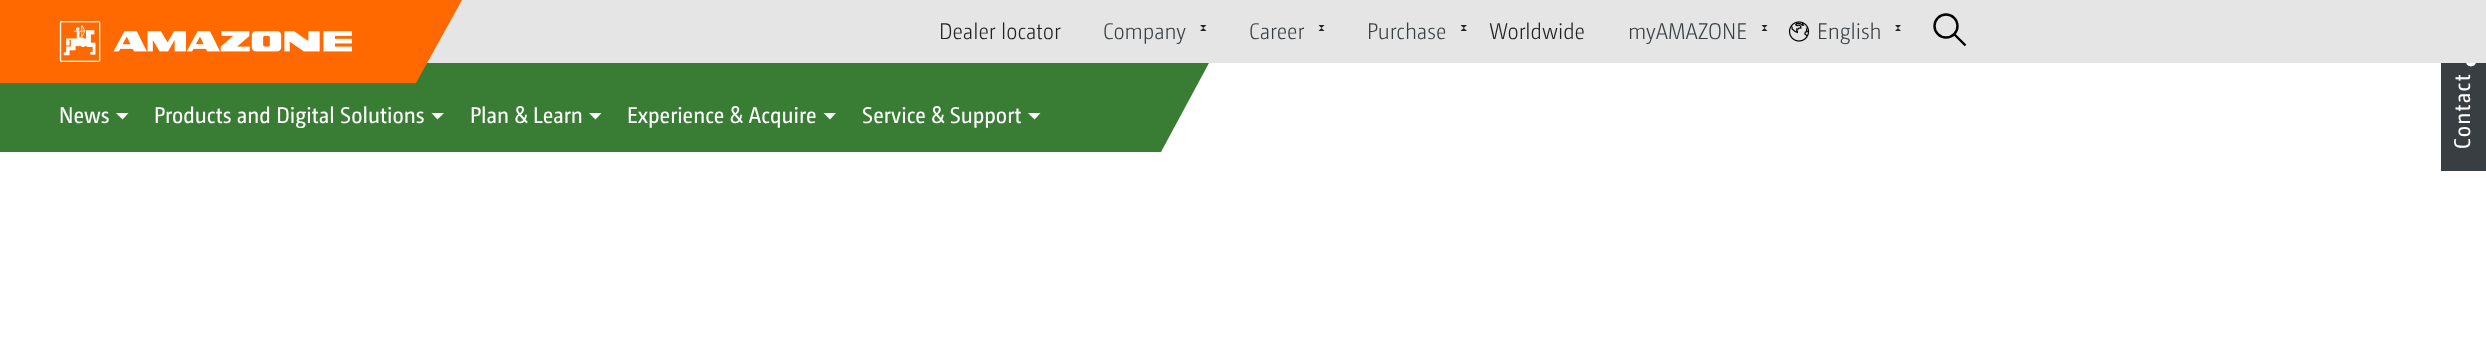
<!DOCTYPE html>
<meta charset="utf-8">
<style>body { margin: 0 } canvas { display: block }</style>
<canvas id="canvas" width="2486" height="343"></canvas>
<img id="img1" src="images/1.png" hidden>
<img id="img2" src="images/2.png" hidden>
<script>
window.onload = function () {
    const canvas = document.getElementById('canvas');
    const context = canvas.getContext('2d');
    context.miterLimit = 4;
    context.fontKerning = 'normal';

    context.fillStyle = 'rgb(255, 255, 255)';
    context.fillRect(0, 0, 2486, 343);
    context.fillStyle = 'rgb(56, 62, 66)';
    context.fillRect(2441, 63, 45, 108);
    context.fillStyle = 'rgb(255, 255, 255)';
    context.beginPath();
    context.moveTo(2466, 61.5);
    context.bezierCurveTo(2466, 55, 2476.5, 55, 2476, 61.5);
    context.bezierCurveTo(2476, 68, 2466, 68, 2466, 61.5);
    context.closePath();
    context.fill();
    context.fillStyle = 'rgb(229, 229, 229)';
    context.fillRect(427, 0, 2059, 63);
    context.fillStyle = 'rgb(56, 125, 51)';
    context.beginPath();
    context.moveTo(0, 63);
    context.lineTo(0, 152);
    context.lineTo(1161, 152);
    context.lineTo(1209, 63);
    context.closePath();
    context.fill();
    context.fillStyle = 'rgb(255, 105, 0)';
    context.beginPath();
    context.moveTo(0, 0);
    context.lineTo(0, 83);
    context.lineTo(416, 83);
    context.lineTo(462, 0);
    context.closePath();
    context.fill();
    context.drawImage(document.getElementById('img1'), 59, 21, 293, 41);
    context.fillStyle = 'rgb(34, 34, 34)';
    context.beginPath();
    context.moveTo(1200, 25);
    context.lineTo(1206.5, 25);
    context.lineTo(1200, 31);
    context.lineTo(1206.5, 31);
    context.closePath();
    context.fill();
    context.beginPath();
    context.moveTo(1318.5, 25);
    context.lineTo(1324.5, 25);
    context.lineTo(1318.5, 31);
    context.lineTo(1324.5, 31);
    context.closePath();
    context.fill();
    context.beginPath();
    context.moveTo(1460.5, 25);
    context.lineTo(1467, 25);
    context.lineTo(1460.5, 31);
    context.lineTo(1467, 31);
    context.closePath();
    context.fill();
    context.beginPath();
    context.moveTo(1761.5, 25);
    context.lineTo(1767.5, 25);
    context.lineTo(1761.5, 31);
    context.lineTo(1767.5, 31);
    context.closePath();
    context.fill();
    context.drawImage(document.getElementById('img2'), 1788, 21, 22, 21);
    context.beginPath();
    context.moveTo(1895, 25);
    context.lineTo(1901, 25);
    context.lineTo(1895, 31);
    context.lineTo(1901, 31);
    context.closePath();
    context.fill();
    context.beginPath();
    context.arc(1946, 26, 11.5, 0, 2 * Math.PI);
    context.strokeStyle = 'rgb(0, 0, 0)';
    context.lineWidth = 2.4;
    context.stroke();
    context.beginPath();
    context.moveTo(1965.5, 45.5);
    context.lineTo(1953.5, 33.5);
    context.stroke();
    context.fillStyle = 'rgb(255, 255, 255)';
    context.beginPath();
    context.moveTo(116, 113);
    context.lineTo(128.5, 113);
    context.lineTo(122.5, 119.5);
    context.closePath();
    context.fill();
    context.beginPath();
    context.moveTo(431.5, 113);
    context.lineTo(444, 113);
    context.lineTo(437.5, 119.5);
    context.closePath();
    context.fill();
    context.beginPath();
    context.moveTo(589, 113);
    context.lineTo(601.5, 113);
    context.lineTo(595.5, 119.5);
    context.closePath();
    context.fill();
    context.beginPath();
    context.moveTo(823.5, 113);
    context.lineTo(836, 113);
    context.lineTo(830, 119.5);
    context.closePath();
    context.fill();
    context.beginPath();
    context.moveTo(1028, 113);
    context.lineTo(1040.5, 113);
    context.lineTo(1034.5, 119.5);
    context.closePath();
    context.fill();
    context.font = '300 22.5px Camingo';
    context.fillStyle = 'rgb(34, 34, 34)';
    context.fillText('Dealer locator', 939, 39);
    context.fillStyle = 'rgb(56, 62, 66)';
    context.fillText('Company', 1103, 39);
    context.fillText('Career', 1249, 39);
    context.fillText('Purchase', 1367, 39);
    context.fillStyle = 'rgb(34, 34, 34)';
    context.fillText('Worldwide', 1489, 39);
    context.fillStyle = 'rgb(56, 62, 66)';
    context.fillText('myAMAZONE', 1628, 39);
    context.fillText('English', 1817, 39);
    context.font = '22.5px Camingo';
    context.fillStyle = 'rgb(255, 255, 255)';
    context.fillText('News', 59, 123);
    context.fillText('Products and Digital Solutions', 154, 123);
    context.fillText('Plan & Learn', 470, 123);
    context.fillText('Experience & Acquire', 627, 123);
    context.fillText('Service & Support', 862, 123);
    context.letterSpacing = '1.25px';
    context.save();
    context.translate(2470, 149);
    context.rotate(-90 * Math.PI / 180);
    context.fillText('Contact', 0, 0);
    context.restore();
};
</script>
